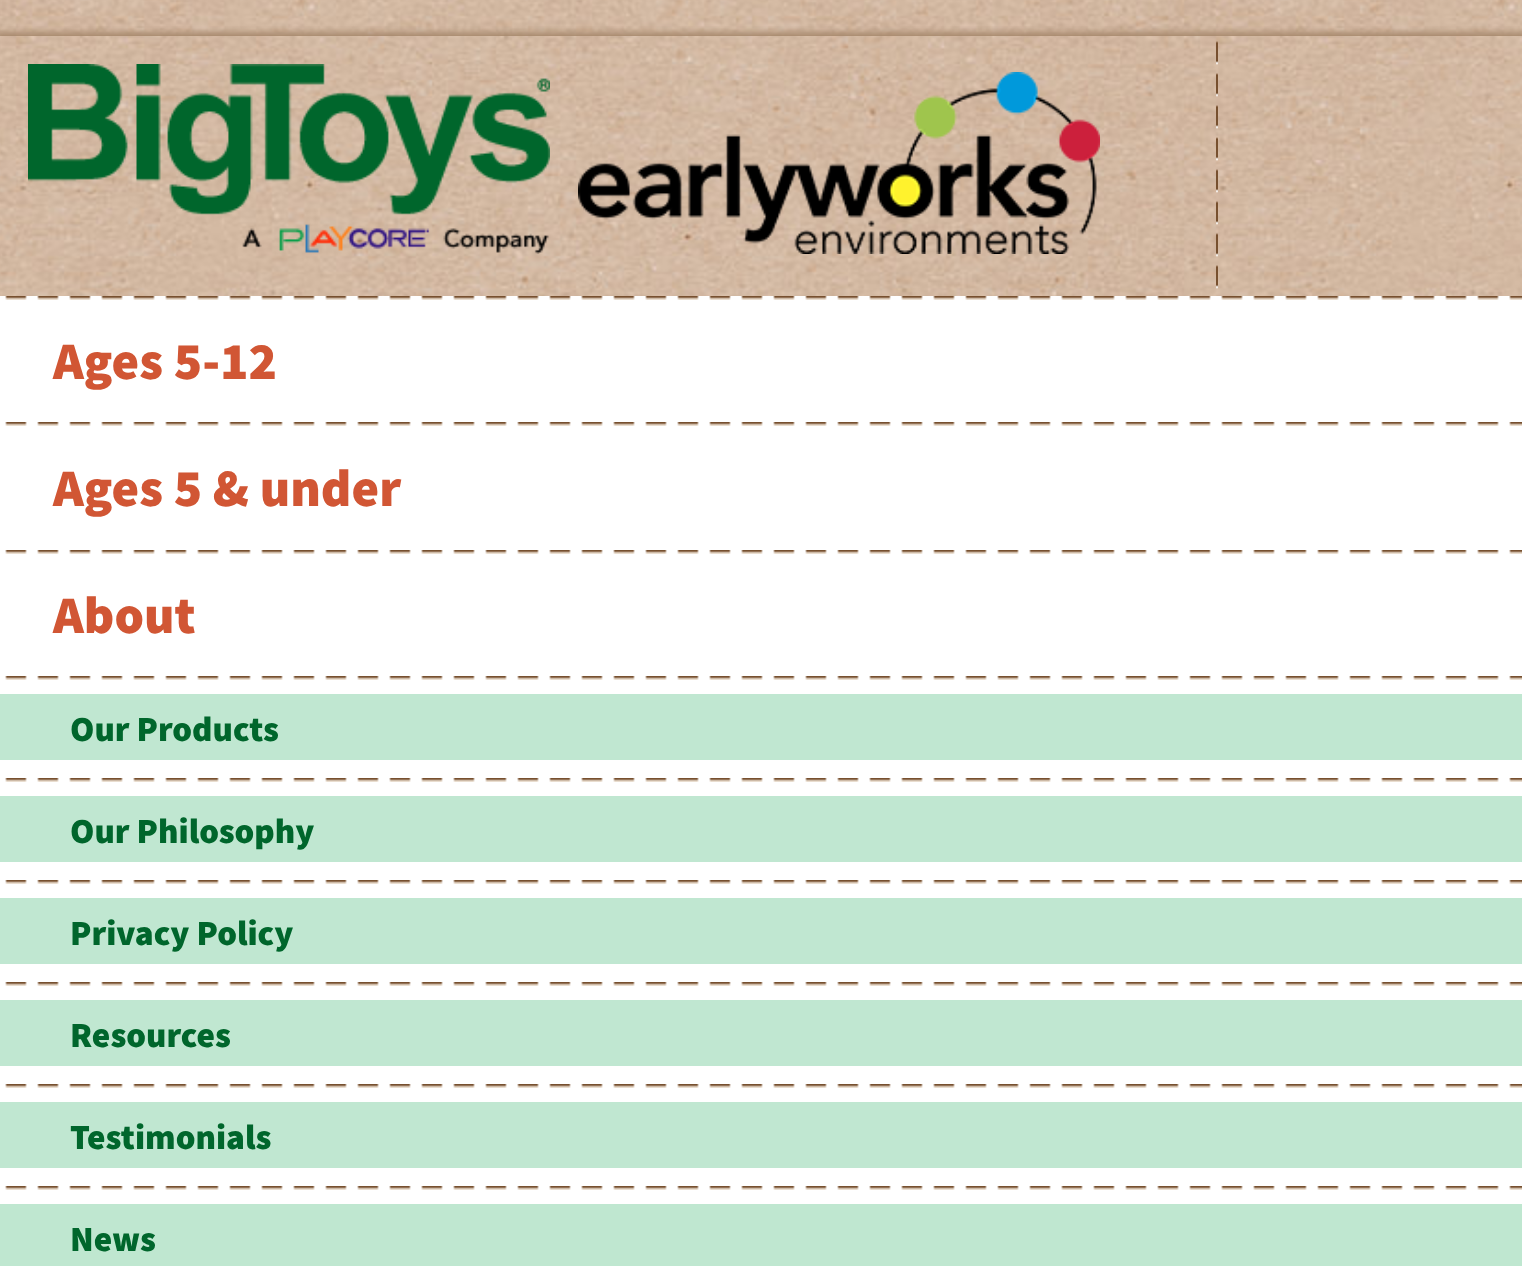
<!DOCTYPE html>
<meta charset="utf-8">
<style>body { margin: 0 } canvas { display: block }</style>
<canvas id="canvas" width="1522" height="1266"></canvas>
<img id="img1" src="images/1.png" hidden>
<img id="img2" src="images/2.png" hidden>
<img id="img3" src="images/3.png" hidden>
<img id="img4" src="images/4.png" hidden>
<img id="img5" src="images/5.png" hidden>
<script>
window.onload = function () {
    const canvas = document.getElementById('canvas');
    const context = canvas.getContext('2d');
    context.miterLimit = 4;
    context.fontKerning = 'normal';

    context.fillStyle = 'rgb(255, 255, 255)';
    context.fillRect(0, 0, 1522, 1266);
    context.drawImage(document.getElementById('img1'), 0, 0, 1522, 296);
    context.save();
    context.beginPath();
    context.rect(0, 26, 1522, 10);
    context.clip();
    context.fillStyle = 'rgb(167, 137, 109)';
    context.filter = 'blur(3px)';
    context.beginPath();
    context.rect(-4, 32, 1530, 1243);
    context.fill();
    context.filter = 'none';
    context.restore();
    context.drawImage(document.getElementById('img2'), 1216, 41, 2, 248);
    context.drawImage(document.getElementById('img3'), 28, 64, 522, 190);
    context.drawImage(document.getElementById('img4'), 578, 72, 522, 182);
    context.drawImage(document.getElementById('img5'), 5, 296, 1517, 4);
    context.drawImage(document.getElementById('img5'), 5, 422, 1517, 4);
    context.drawImage(document.getElementById('img5'), 5, 550, 1517, 4);
    context.drawImage(document.getElementById('img5'), 5, 676, 1517, 4);
    context.fillStyle = 'rgb(192, 231, 209)';
    context.fillRect(0, 694, 1522, 66);
    context.drawImage(document.getElementById('img5'), 5, 778, 1517, 4);
    context.fillRect(0, 796, 1522, 66);
    context.drawImage(document.getElementById('img5'), 5, 880, 1517, 4);
    context.fillRect(0, 898, 1522, 66);
    context.drawImage(document.getElementById('img5'), 5, 982, 1517, 4);
    context.fillRect(0, 1000, 1522, 66);
    context.drawImage(document.getElementById('img5'), 5, 1084, 1517, 4);
    context.fillRect(0, 1102, 1522, 66);
    context.drawImage(document.getElementById('img5'), 5, 1186, 1517, 4);
    context.fillStyle = 'rgb(191, 231, 208)';
    context.fillRect(0, 1204, 1522, 62);
    context.font = '900 52.75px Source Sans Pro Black';
    context.fillStyle = 'rgb(209, 86, 52)';
    context.fillText('Ages 5-12', 53, 379);
    context.fillText('Ages 5 & under', 53, 506);
    context.fillText('About', 53, 633);
    context.font = '900 35.25px Source Sans Pro Black';
    context.fillStyle = 'rgb(0, 102, 44)';
    context.fillText('Our Products', 70, 741);
    context.fillText('Our Philosophy', 70, 843);
    context.fillText('Privacy Policy', 70, 945);
    context.fillText('Resources', 70, 1047);
    context.fillText('Testimonials', 70, 1149);
    context.fillText('News', 70, 1251);
};
</script>
